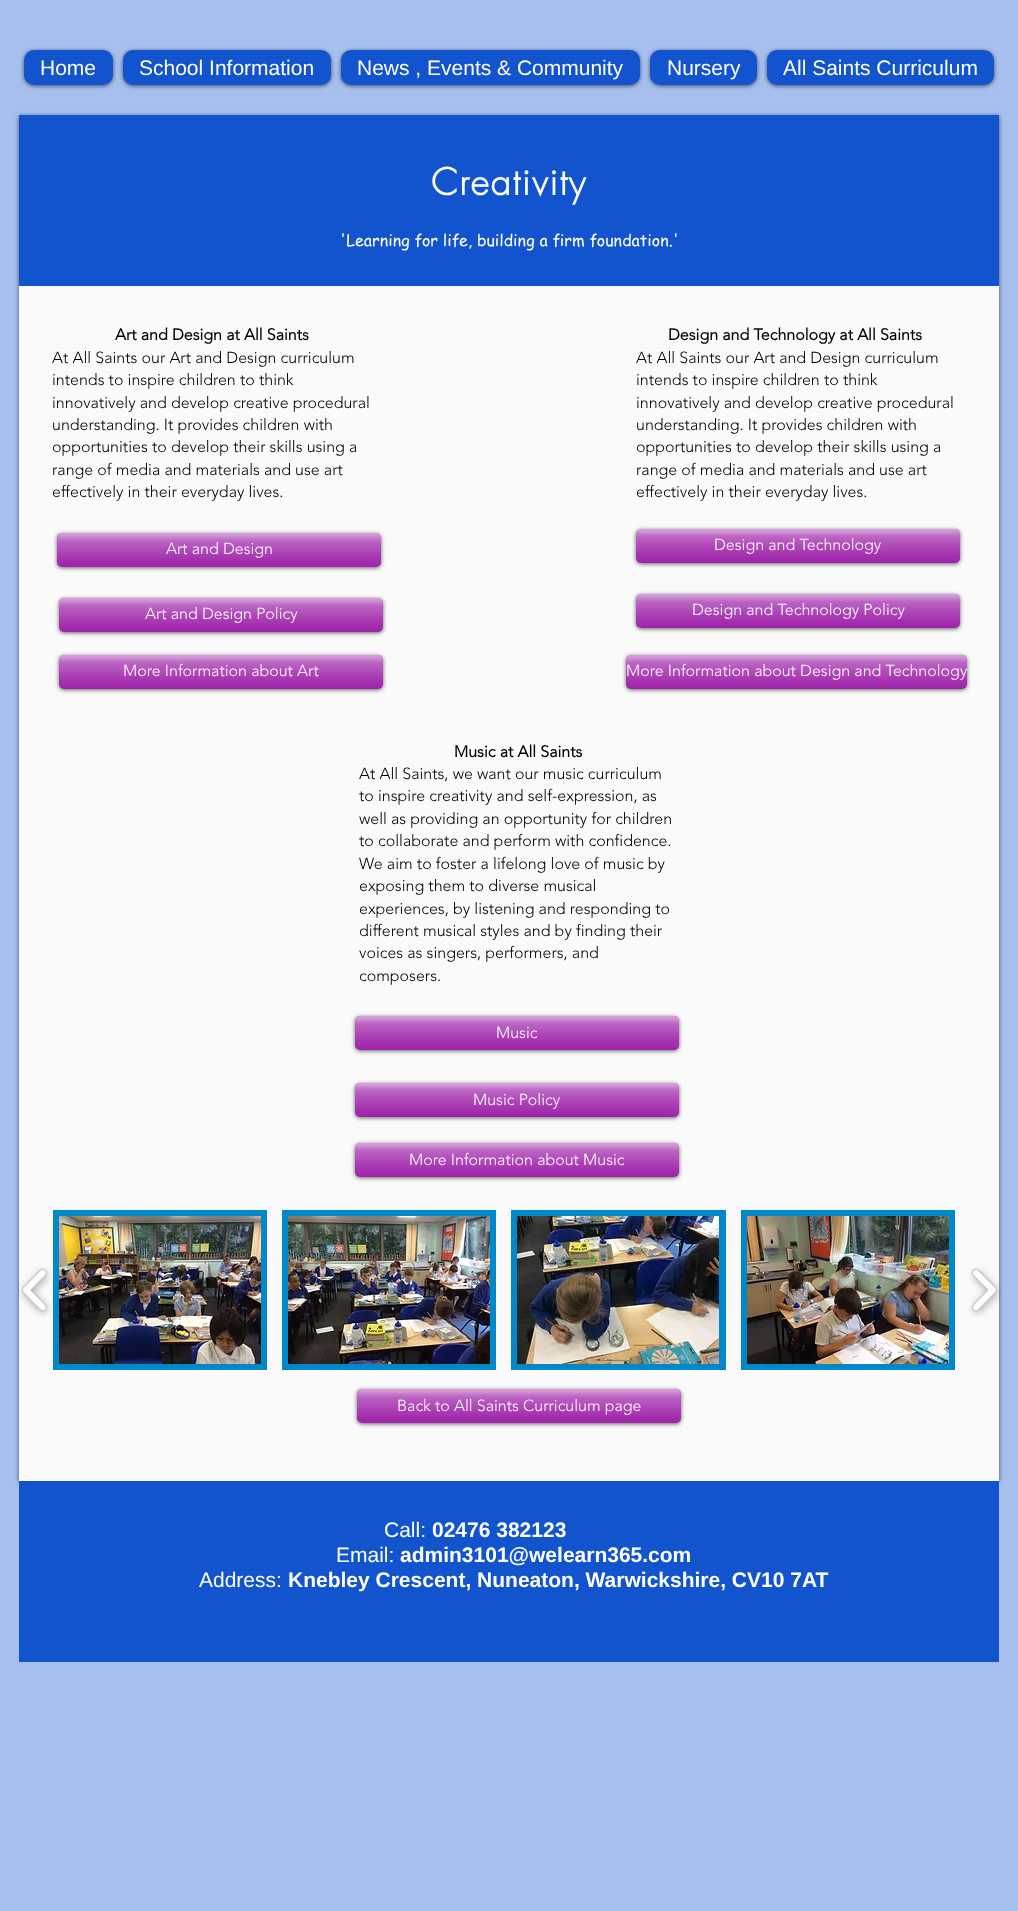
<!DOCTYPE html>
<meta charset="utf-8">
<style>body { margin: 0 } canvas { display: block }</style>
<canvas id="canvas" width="1018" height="1911"></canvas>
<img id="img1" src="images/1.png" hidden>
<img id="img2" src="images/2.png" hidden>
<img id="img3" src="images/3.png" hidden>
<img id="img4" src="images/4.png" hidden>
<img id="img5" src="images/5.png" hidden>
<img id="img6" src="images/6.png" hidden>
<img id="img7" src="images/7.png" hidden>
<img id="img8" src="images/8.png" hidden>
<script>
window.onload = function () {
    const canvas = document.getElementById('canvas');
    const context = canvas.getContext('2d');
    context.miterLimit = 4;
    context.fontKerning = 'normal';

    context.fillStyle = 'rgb(166, 191, 238)';
    context.fillRect(0, 0, 1018, 1911);
    context.fillStyle = 'rgba(0, 0, 0, 0.6)';
    context.filter = 'blur(2px)';
    context.beginPath();
    context.roundRect(24, 51, 89, 35, 10);
    context.fill();
    context.filter = 'none';
    context.fillStyle = 'rgb(18, 84, 206)';
    context.beginPath();
    context.roundRect(24, 50, 89, 35, 10);
    context.fill();
    context.fillStyle = 'rgba(0, 0, 0, 0.6)';
    context.filter = 'blur(2px)';
    context.beginPath();
    context.roundRect(123, 51, 208, 35, 10);
    context.fill();
    context.filter = 'none';
    context.fillStyle = 'rgb(18, 84, 206)';
    context.beginPath();
    context.roundRect(123, 50, 208, 35, 10);
    context.fill();
    context.fillStyle = 'rgba(0, 0, 0, 0.6)';
    context.filter = 'blur(2px)';
    context.beginPath();
    context.roundRect(341, 51, 299, 35, 10);
    context.fill();
    context.filter = 'none';
    context.fillStyle = 'rgb(18, 84, 206)';
    context.beginPath();
    context.roundRect(341, 50, 299, 35, 10);
    context.fill();
    context.fillStyle = 'rgba(0, 0, 0, 0.6)';
    context.filter = 'blur(2px)';
    context.beginPath();
    context.roundRect(650, 51, 107, 35, 10);
    context.fill();
    context.filter = 'none';
    context.fillStyle = 'rgb(18, 84, 206)';
    context.beginPath();
    context.roundRect(650, 50, 107, 35, 10);
    context.fill();
    context.fillStyle = 'rgba(0, 0, 0, 0.6)';
    context.filter = 'blur(2px)';
    context.beginPath();
    context.roundRect(767, 51, 227, 35, 10);
    context.fill();
    context.filter = 'none';
    context.fillStyle = 'rgb(18, 84, 206)';
    context.beginPath();
    context.roundRect(767, 50, 227, 35, 10);
    context.fill();
    context.fillStyle = 'rgba(0, 0, 0, 0.6)';
    context.filter = 'blur(2px)';
    context.beginPath();
    context.rect(19, 116, 980, 1366);
    context.fill();
    context.filter = 'none';
    context.fillStyle = 'rgb(255, 255, 255)';
    context.fillRect(19, 1480, 980, 1);
    context.fillStyle = 'rgb(18, 84, 206)';
    context.fillRect(19, 115, 980, 171);
    context.fillStyle = 'rgb(250, 250, 250)';
    context.fillRect(19, 286, 980, 1194);
    context.fillStyle = 'rgba(0, 0, 0, 0.6)';
    context.filter = 'blur(2px)';
    context.beginPath();
    context.roundRect(57, 534, 324, 34, 5);
    context.fill();
    context.filter = 'none';
    context.fillStyle = 'rgb(151, 17, 163)';
    context.beginPath();
    context.roundRect(57, 533, 324, 34, 5);
    context.fill();
    context.drawImage(document.getElementById('img1'), 57, 533, 324, 34);
    context.fillStyle = 'rgba(0, 0, 0, 0.6)';
    context.filter = 'blur(2px)';
    context.beginPath();
    context.roundRect(59, 599, 324, 34, 5);
    context.fill();
    context.filter = 'none';
    context.fillStyle = 'rgb(151, 17, 163)';
    context.beginPath();
    context.roundRect(59, 598, 324, 34, 5);
    context.fill();
    context.drawImage(document.getElementById('img1'), 59, 598, 324, 34);
    context.fillStyle = 'rgba(0, 0, 0, 0.6)';
    context.filter = 'blur(2px)';
    context.beginPath();
    context.roundRect(636, 530, 324, 34, 5);
    context.fill();
    context.filter = 'none';
    context.fillStyle = 'rgb(151, 17, 163)';
    context.beginPath();
    context.roundRect(636, 529, 324, 34, 5);
    context.fill();
    context.drawImage(document.getElementById('img1'), 636, 529, 324, 34);
    context.fillStyle = 'rgba(0, 0, 0, 0.6)';
    context.filter = 'blur(2px)';
    context.beginPath();
    context.roundRect(636, 595, 324, 34, 5);
    context.fill();
    context.filter = 'none';
    context.fillStyle = 'rgb(151, 17, 163)';
    context.beginPath();
    context.roundRect(636, 594, 324, 34, 5);
    context.fill();
    context.drawImage(document.getElementById('img1'), 636, 594, 324, 34);
    context.fillStyle = 'rgba(0, 0, 0, 0.6)';
    context.filter = 'blur(2px)';
    context.beginPath();
    context.roundRect(59, 656, 324, 34, 5);
    context.fill();
    context.filter = 'none';
    context.fillStyle = 'rgb(151, 17, 163)';
    context.beginPath();
    context.roundRect(59, 655, 324, 34, 5);
    context.fill();
    context.drawImage(document.getElementById('img1'), 59, 655, 324, 34);
    context.fillStyle = 'rgba(0, 0, 0, 0.6)';
    context.filter = 'blur(2px)';
    context.beginPath();
    context.roundRect(626, 656, 341, 34, 5);
    context.fill();
    context.filter = 'none';
    context.fillStyle = 'rgb(151, 17, 163)';
    context.beginPath();
    context.roundRect(626, 655, 341, 34, 5);
    context.fill();
    context.drawImage(document.getElementById('img2'), 626, 655, 341, 34);
    context.fillStyle = 'rgba(0, 0, 0, 0.6)';
    context.filter = 'blur(2px)';
    context.beginPath();
    context.roundRect(355, 1017, 324, 34, 5);
    context.fill();
    context.filter = 'none';
    context.fillStyle = 'rgb(151, 17, 163)';
    context.beginPath();
    context.roundRect(355, 1016, 324, 34, 5);
    context.fill();
    context.drawImage(document.getElementById('img1'), 355, 1016, 324, 34);
    context.fillStyle = 'rgba(0, 0, 0, 0.6)';
    context.filter = 'blur(2px)';
    context.beginPath();
    context.roundRect(355, 1084, 324, 34, 5);
    context.fill();
    context.filter = 'none';
    context.fillStyle = 'rgb(151, 17, 163)';
    context.beginPath();
    context.roundRect(355, 1083, 324, 34, 5);
    context.fill();
    context.drawImage(document.getElementById('img1'), 355, 1083, 324, 34);
    context.fillStyle = 'rgba(0, 0, 0, 0.6)';
    context.filter = 'blur(2px)';
    context.beginPath();
    context.roundRect(355, 1144, 324, 34, 5);
    context.fill();
    context.filter = 'none';
    context.fillStyle = 'rgb(151, 17, 163)';
    context.beginPath();
    context.roundRect(355, 1143, 324, 34, 5);
    context.fill();
    context.drawImage(document.getElementById('img1'), 355, 1143, 324, 34);
    context.drawImage(document.getElementById('img3'), 19, 1267, 33, 50);
    context.fillStyle = 'rgb(0, 136, 203)';
    context.fillRect(53, 1210, 214, 160);
    context.drawImage(document.getElementById('img4'), 59, 1216, 202, 148);
    context.fillRect(282, 1210, 214, 160);
    context.drawImage(document.getElementById('img5'), 288, 1216, 202, 148);
    context.fillRect(511, 1210, 215, 160);
    context.drawImage(document.getElementById('img6'), 517, 1216, 202, 148);
    context.fillRect(741, 1210, 214, 160);
    context.drawImage(document.getElementById('img7'), 747, 1216, 202, 148);
    context.drawImage(document.getElementById('img8'), 969, 1267, 33, 50);
    context.fillStyle = 'rgba(0, 0, 0, 0.6)';
    context.filter = 'blur(2px)';
    context.beginPath();
    context.roundRect(357, 1390, 324, 34, 5);
    context.fill();
    context.filter = 'none';
    context.fillStyle = 'rgb(151, 17, 163)';
    context.beginPath();
    context.roundRect(357, 1389, 324, 34, 5);
    context.fill();
    context.drawImage(document.getElementById('img1'), 357, 1389, 324, 34);
    context.fillStyle = 'rgb(18, 84, 206)';
    context.fillRect(19, 1481, 980, 181);
    context.font = '21px Liberation Sans';
    context.fillStyle = 'rgb(255, 255, 255)';
    context.fillText('Home', 40, 75);
    context.fillText('School Information', 139, 75);
    context.fillText('News , Events & Community', 357, 75);
    context.fillText('Nursery', 667, 75);
    context.fillText('All Saints Curriculum', 783, 75);
    context.letterSpacing = '1.75px';
    context.font = 'bold 36px futura';
    context.fillText('Creativity', 431, 195);
    context.letterSpacing = '0px';
    context.font = '16px "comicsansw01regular"';
    context.fillText('\'Learning for life, building a firm foundation.\'', 340, 246);
    context.font = 'bold 16px "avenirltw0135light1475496"';
    context.fillStyle = 'rgb(0, 0, 0)';
    context.fillText('Art and Design at All Saints', 115, 340);
    context.font = '300 16px "avenirltw0135light1475496"';
    context.fillText('At All Saints our Art and Design curriculum', 52, 363);
    context.fillText('intends to inspire children to think', 52, 385);
    context.fillText('innovatively and develop creative procedural', 52, 408);
    context.fillText('understanding. It provides children with', 52, 430);
    context.fillText('opportunities to develop their skills using a', 52, 452);
    context.fillText('range of media and materials and use art', 52, 475);
    context.fillText('effectively in their everyday lives.', 52, 497);
    context.font = 'bold 16px "avenirltw0135light1475496"';
    context.fillText('Design and Technology at All Saints', 668, 340);
    context.font = '300 16px "avenirltw0135light1475496"';
    context.fillText('At All Saints our Art and Design curriculum', 636, 363);
    context.fillText('intends to inspire children to think', 636, 385);
    context.fillText('innovatively and develop creative procedural', 636, 408);
    context.fillText('understanding. It provides children with', 636, 430);
    context.fillText('opportunities to develop their skills using a', 636, 452);
    context.fillText('range of media and materials and use art', 636, 475);
    context.fillText('effectively in their everyday lives.', 636, 497);
    context.fillStyle = 'rgb(255, 255, 255)';
    context.fillText('Art and Design', 166, 554);
    context.fillText('Art and Design Policy', 145, 619);
    context.fillText('Design and Technology', 714, 550);
    context.fillText('Design and Technology Policy', 692, 615);
    context.fillText('More Information about Art', 123, 676);
    context.fillText('More Information about Design and Technology', 626, 676);
    context.font = 'bold 16px "avenirltw0135light1475496"';
    context.fillStyle = 'rgb(0, 0, 0)';
    context.fillText('Music at All Saints', 454, 757);
    context.font = '300 16px "avenirltw0135light1475496"';
    context.fillText('At All Saints, we want our music curriculum', 359, 779);
    context.fillText('to inspire creativity and self-expression, as', 359, 801);
    context.fillText('well as providing an opportunity for children', 359, 824);
    context.fillText('to collaborate and perform with confidence.', 359, 846);
    context.fillText('We aim to foster a lifelong love of music by', 359, 869);
    context.fillText('exposing them to diverse musical', 359, 891);
    context.fillText('experiences, by listening and responding to', 359, 914);
    context.fillText('different musical styles and by finding their', 359, 936);
    context.fillText('voices as singers, performers, and', 359, 958);
    context.fillText('composers.', 359, 981);
    context.fillStyle = 'rgb(255, 255, 255)';
    context.fillText('Music', 496, 1038);
    context.fillText('Music Policy', 473, 1105);
    context.fillText('More Information about Music', 409, 1165);
    context.fillText('Back to All Saints Curriculum page', 397, 1411);
    context.font = '21px Liberation Sans';
    context.fillText('Call:', 384, 1537);
    context.font = 'bold 21px Liberation Sans';
    context.fillText('02476 382123', 432, 1537);
    context.font = '21px Liberation Sans';
    context.fillText('Email:', 336, 1562);
    context.font = 'bold 21px Liberation Sans';
    context.fillText('admin3101@welearn365.com', 400, 1562);
    context.font = '21px Liberation Sans';
    context.fillText('Address:', 199, 1587);
    context.font = 'bold 21px Liberation Sans';
    context.fillText('Knebley Crescent, Nuneaton, Warwickshire, CV10 7AT', 288, 1587);
};
</script>
